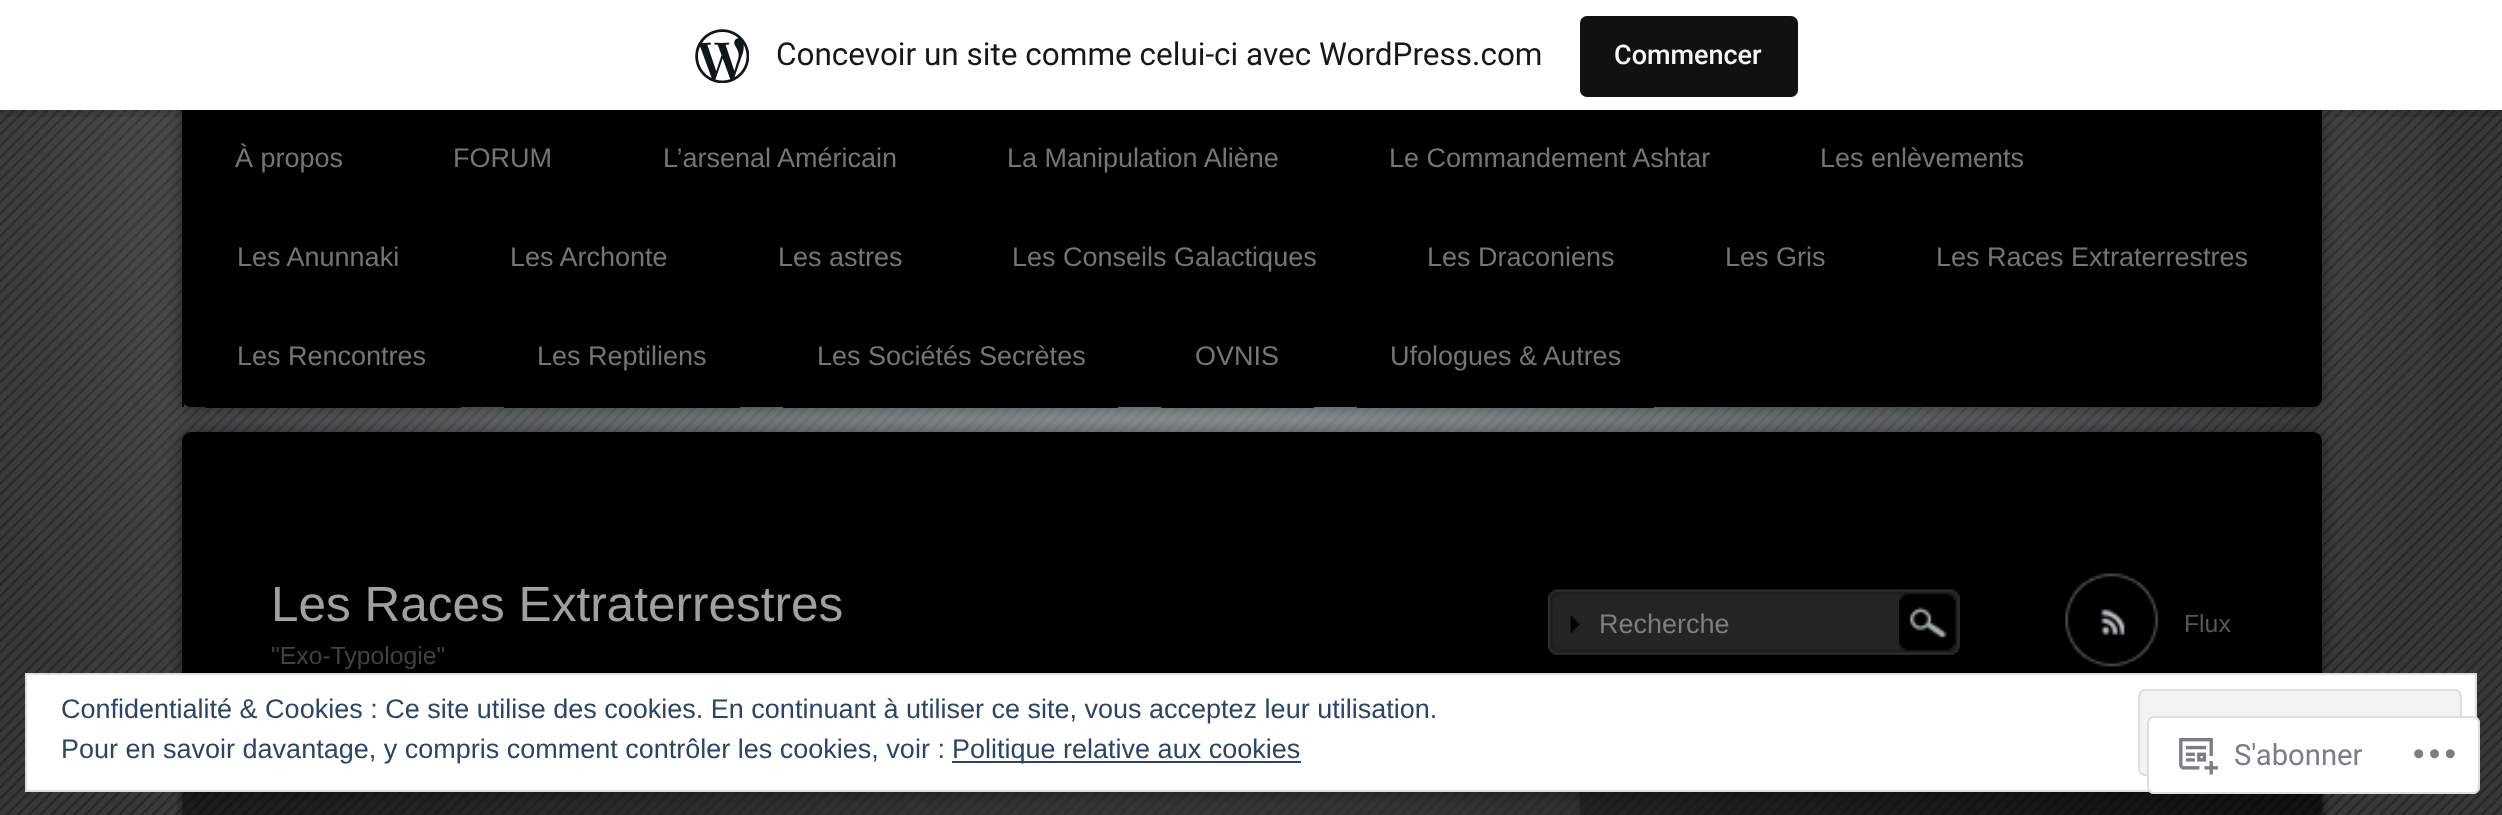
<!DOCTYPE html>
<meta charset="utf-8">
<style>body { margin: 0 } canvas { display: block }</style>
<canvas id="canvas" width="2502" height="815"></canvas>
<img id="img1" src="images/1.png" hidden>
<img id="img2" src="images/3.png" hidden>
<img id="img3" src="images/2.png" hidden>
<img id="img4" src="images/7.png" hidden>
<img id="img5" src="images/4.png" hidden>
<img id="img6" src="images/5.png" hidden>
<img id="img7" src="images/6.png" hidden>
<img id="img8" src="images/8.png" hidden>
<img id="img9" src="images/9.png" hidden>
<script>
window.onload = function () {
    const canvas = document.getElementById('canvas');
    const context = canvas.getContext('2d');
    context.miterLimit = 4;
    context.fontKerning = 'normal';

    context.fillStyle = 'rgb(255, 255, 255)';
    context.fillRect(0, 0, 2502, 815);
    context.drawImage(document.getElementById('img1'), 0, 110, 2502, 705);
    context.drawImage(document.getElementById('img2'), 0, 110, 2436, 705);
    context.fillStyle = 'rgba(0, 0, 0, 0.5)';
    context.filter = 'blur(9px)';
    context.beginPath();
    context.roundRect(182, 110, 2140, 297, 9);
    context.fill();
    context.filter = 'none';
    context.fillStyle = 'rgb(0, 0, 0)';
    context.beginPath();
    context.roundRect(182, 110, 2140, 297, [0, 0, 9, 9]);
    context.fill();
    context.fillStyle = 'rgba(0, 0, 0, 0.05)';
    context.filter = 'blur(2px)';
    context.beginPath();
    context.rect(0, 2, 2502, 111);
    context.fill();
    context.filter = 'none';
    context.fillStyle = 'rgba(0, 0, 0, 0.08)';
    context.beginPath();
    context.moveTo(2, 110);
    context.lineTo(2, 117);
    context.lineTo(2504, 117);
    context.lineTo(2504, 7);
    context.lineTo(2502, 7);
    context.lineTo(2502, 110);
    context.closePath();
    context.fill();
    context.fillStyle = 'rgb(255, 255, 255)';
    context.fillRect(0, 0, 2502, 110);
    context.drawImage(document.getElementById('img3'), 695, 29, 54, 54);
    context.fillStyle = 'rgb(17, 17, 17)';
    context.beginPath();
    context.roundRect(1580, 16, 218, 81, 7);
    context.fill();
    context.fillStyle = 'rgb(0, 0, 0)';
    context.fillRect(182, 398, 2, 9);
    context.fillRect(205, 407, 256, 1);
    context.fillRect(504, 407, 236, 1);
    context.fillRect(783, 407, 335, 1);
    context.fillRect(1161, 407, 153, 1);
    context.fillRect(1357, 407, 297, 1);
    context.drawImage(document.getElementById('img4'), 177, 792, 2151, 23);
    context.fillStyle = 'rgba(0, 0, 0, 0.5)';
    context.filter = 'blur(9px)';
    context.beginPath();
    context.roundRect(182, 432, 2140, 360, 9);
    context.fill();
    context.filter = 'none';
    context.fillStyle = 'rgb(0, 0, 0)';
    context.beginPath();
    context.roundRect(182, 432, 2140, 360, [9, 9, 0, 0]);
    context.fill();
    context.drawImage(document.getElementById('img5'), 1548, 589, 354, 66);
    context.drawImage(document.getElementById('img6'), 1899, 589, 61, 66);
    context.drawImage(document.getElementById('img7'), 2065, 573, 94, 94);
    context.fillStyle = 'rgb(255, 255, 255)';
    context.beginPath();
    context.rect(26, 674, 2450, 117);
    context.fill();
    context.strokeStyle = 'rgb(222, 222, 222)';
    context.lineWidth = 2;
    context.stroke();
    context.fillStyle = 'rgb(243, 243, 243)';
    context.beginPath();
    context.roundRect(2139, 690, 322, 85, 6);
    context.fill();
    context.stroke();
    context.fillStyle = 'rgb(46, 68, 103)';
    context.fillRect(952, 761, 349, 2);
    context.fillStyle = 'rgba(255, 255, 255, 0.98)';
    context.beginPath();
    context.roundRect(2147, 716, 333, 78, 7);
    context.fill();
    context.beginPath();
    context.roundRect(2148, 717, 331, 76, 6);
    context.strokeStyle = 'rgba(220, 220, 222, 0.98)';
    context.stroke();
    context.drawImage(document.getElementById('img8'), 2179, 738, 39, 37);
    context.drawImage(document.getElementById('img9'), 2414, 749, 41, 10);
    context.font = '31.5px Roboto';
    context.fillStyle = 'rgb(23, 23, 23)';
    context.fillText('Concevoir un site comme celui-ci avec WordPress.com', 776, 65);
    context.font = '500 27px Roboto';
    context.fillStyle = 'rgb(246, 247, 247)';
    context.fillText('Commencer', 1614, 64);
    context.font = '27px Liberation Sans';
    context.fillStyle = 'rgb(117, 117, 117)';
    context.fillText('À propos', 235, 167);
    context.fillText('FORUM', 453, 167);
    context.fillText('L’arsenal Américain', 663, 167);
    context.fillText('La Manipulation Aliène', 1007, 167);
    context.fillText('Le Commandement Ashtar', 1389, 167);
    context.fillText('Les enlèvements', 1820, 167);
    context.fillText('Les Anunnaki', 237, 266);
    context.fillText('Les Archonte', 510, 266);
    context.fillText('Les astres', 778, 266);
    context.fillText('Les Conseils Galactiques', 1012, 266);
    context.fillText('Les Draconiens', 1427, 266);
    context.fillText('Les Gris', 1725, 266);
    context.fillText('Les Races Extraterrestres', 1936, 266);
    context.fillText('Les Rencontres', 237, 365);
    context.fillText('Les Reptiliens', 537, 365);
    context.fillText('Les Sociétés Secrètes', 817, 365);
    context.fillText('OVNIS', 1195, 365);
    context.fillText('Ufologues & Autres', 1390, 365);
    context.font = '49.5px Liberation Sans';
    context.fillStyle = 'rgb(160, 160, 160)';
    context.fillText('Les Races Extraterrestres', 271, 621);
    context.font = '24.75px Liberation Sans';
    context.fillStyle = 'rgb(66, 66, 66)';
    context.fillText('"Exo-Typologie"', 271, 664);
    context.font = '27px Liberation Sans';
    context.fillStyle = 'rgb(126, 126, 126)';
    context.fillText('Recherche', 1599, 633);
    context.font = '24.75px Liberation Sans';
    context.fillStyle = 'rgb(86, 86, 86)';
    context.fillText('Flux', 2184, 632);
    context.font = '27px Liberation Sans';
    context.fillStyle = 'rgb(46, 68, 103)';
    context.fillText('Confidentialité & Cookies : Ce site utilise des cookies. En continuant à utiliser ce site, vous acceptez leur utilisation.', 61, 718);
    context.fillText('Pour en savoir davantage, y compris comment contrôler les cookies, voir :', 61, 758);
    context.fillText('Politique relative aux cookies', 952, 758);
    context.font = '29.25px Roboto';
    context.fillStyle = 'rgb(122, 126, 132)';
    context.fillText('S\'abonner', 2234, 765);
};
</script>
